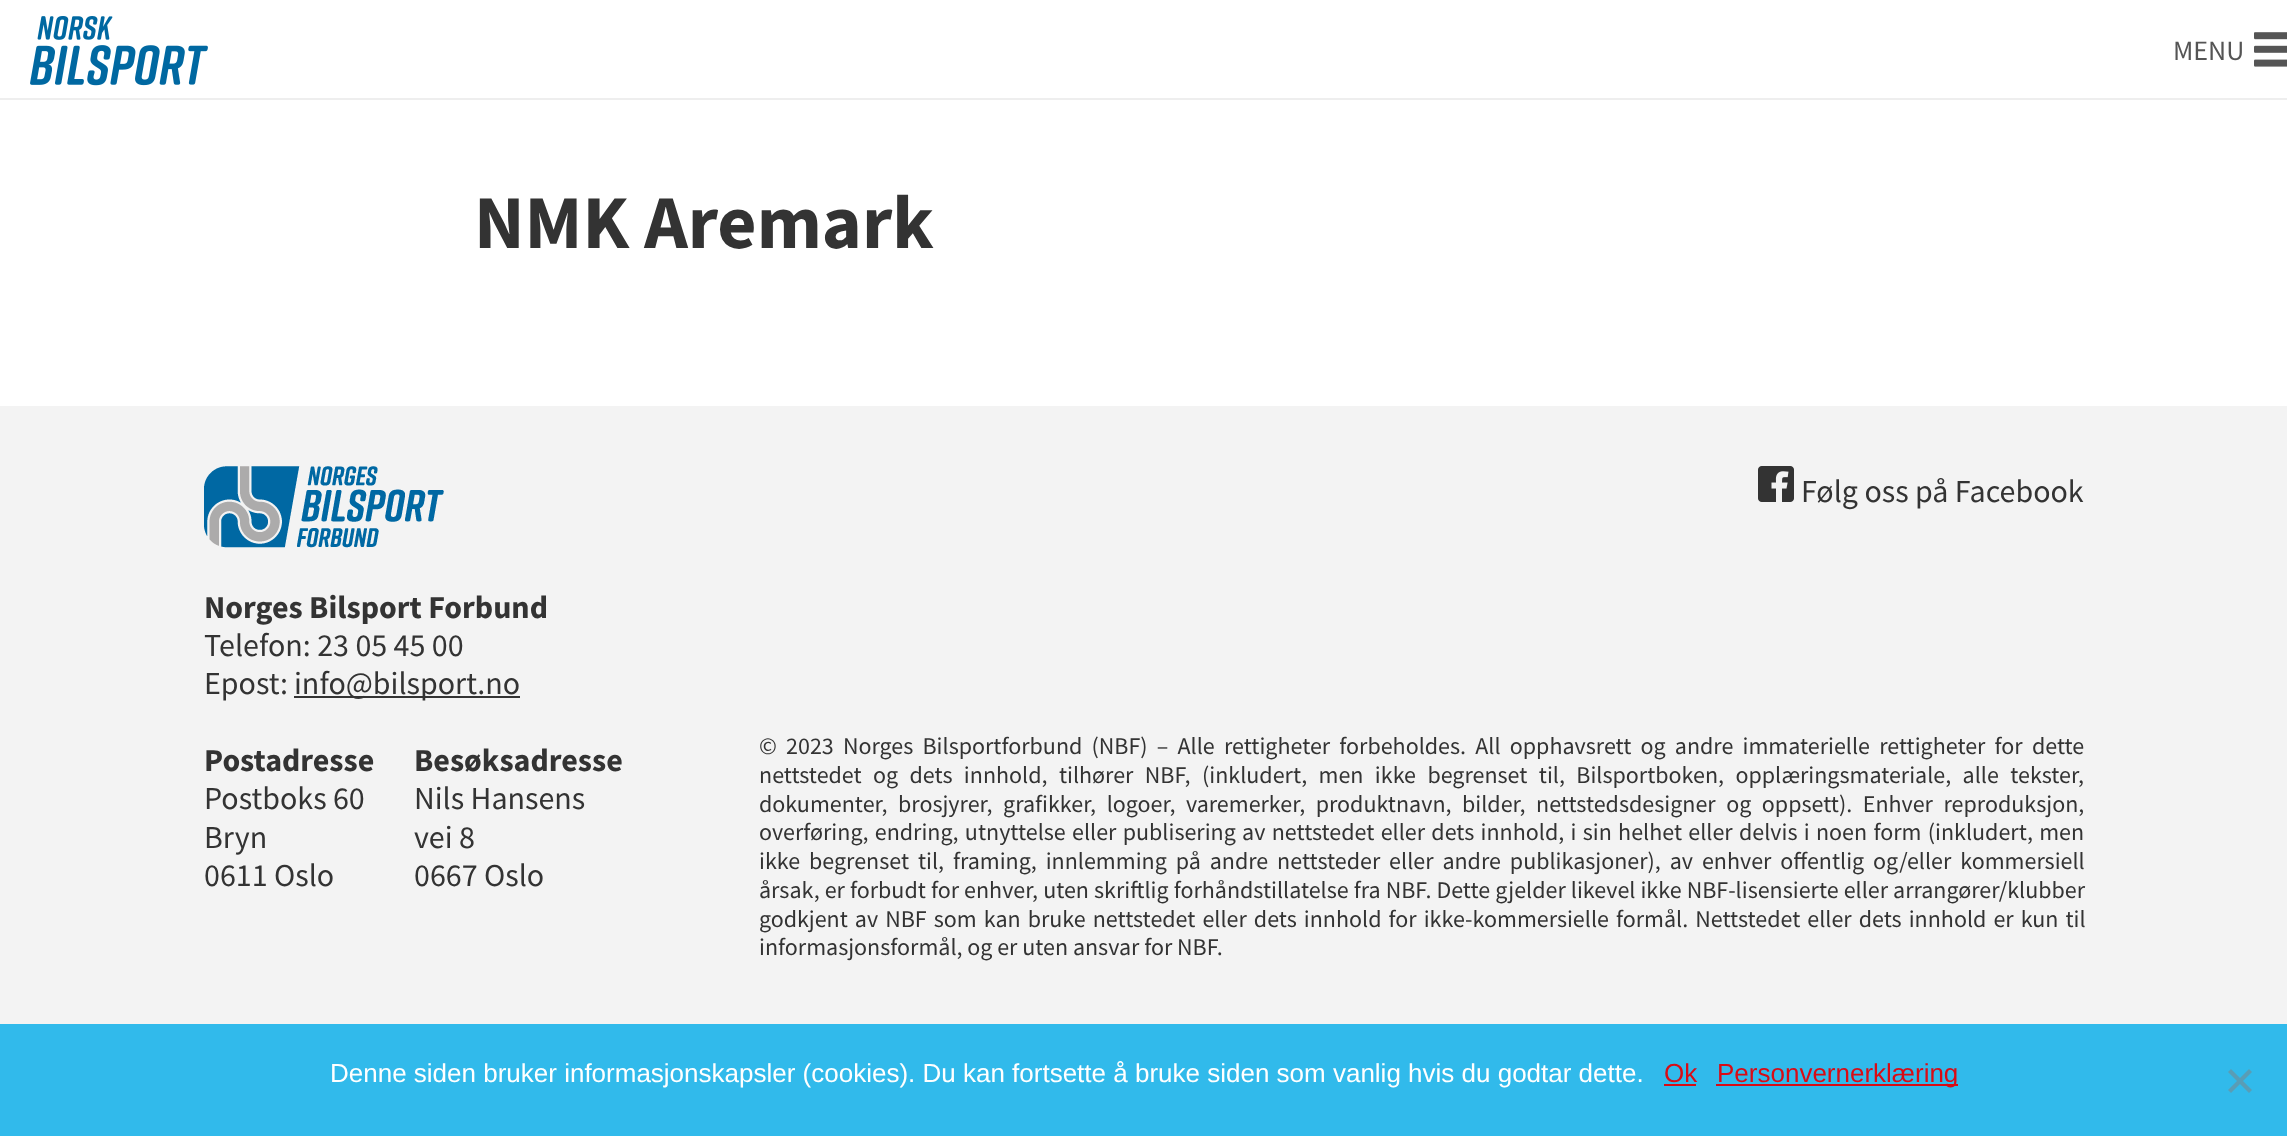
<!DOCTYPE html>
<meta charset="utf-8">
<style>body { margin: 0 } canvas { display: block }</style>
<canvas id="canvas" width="2287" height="1136"></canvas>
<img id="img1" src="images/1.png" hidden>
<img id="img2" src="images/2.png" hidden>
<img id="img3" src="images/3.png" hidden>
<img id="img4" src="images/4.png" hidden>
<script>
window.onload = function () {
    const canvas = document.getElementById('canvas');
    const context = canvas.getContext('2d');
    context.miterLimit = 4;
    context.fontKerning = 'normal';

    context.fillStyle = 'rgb(255, 255, 255)';
    context.fillRect(0, 0, 2287, 1136);
    context.fillStyle = 'rgb(238, 238, 238)';
    context.fillRect(0, 98, 2287, 2);
    context.drawImage(document.getElementById('img1'), 30, 16, 178, 70);
    context.drawImage(document.getElementById('img2'), 2254, 32, 33, 35);
    context.fillStyle = 'rgb(243, 243, 243)';
    context.fillRect(0, 406, 2287, 618);
    context.drawImage(document.getElementById('img3'), 1758, 466, 36, 36);
    context.drawImage(document.getElementById('img4'), 204, 466, 240, 82);
    context.fillStyle = 'rgb(51, 51, 51)';
    context.fillRect(294, 696, 226, 2);
    context.fillStyle = 'rgb(49, 186, 235)';
    context.fillRect(0, 1024, 2287, 112);
    context.fillStyle = 'rgb(217, 11, 21)';
    context.fillRect(1664, 1084, 32, 2);
    context.fillRect(1716, 1084, 242, 2);
    context.fillStyle = 'rgb(89, 157, 182)';
    context.beginPath();
    context.moveTo(2249, 1069);
    context.lineTo(2252, 1072);
    context.lineTo(2231, 1093);
    context.lineTo(2228, 1090);
    context.closePath();
    context.fill();
    context.beginPath();
    context.moveTo(2228, 1072);
    context.lineTo(2231, 1069);
    context.lineTo(2252, 1090);
    context.lineTo(2249, 1093);
    context.closePath();
    context.fill();
    context.font = '28px Source Sans Pro';
    context.fillStyle = 'rgb(85, 85, 85)';
    context.fillText('MENU', 2173, 60);
    context.font = 'bold 76px Source Sans Pro';
    context.fillStyle = 'rgb(51, 51, 51)';
    context.fillText('NMK Aremark', 474, 248);
    context.font = '32px Source Sans Pro';
    context.fillText('Følg oss på Facebook', 1801, 502);
    context.font = 'bold 32px Source Sans Pro';
    context.fillText('Norges Bilsport Forbund', 204, 618);
    context.font = '32px Source Sans Pro';
    context.fillText('Telefon: 23 05 45 00', 204, 656);
    context.fillText('Epost:', 204, 694);
    context.fillText('info@bilsport.no', 294, 694);
    context.font = 'bold 32px Source Sans Pro';
    context.fillText('Postadresse', 204, 771);
    context.font = '32px Source Sans Pro';
    context.fillText('Postboks 60', 204, 809);
    context.fillText('Bryn', 204, 848);
    context.fillText('0611 Oslo', 204, 886);
    context.font = 'bold 32px Source Sans Pro';
    context.fillText('Besøksadresse', 414, 771);
    context.font = '32px Source Sans Pro';
    context.fillText('Nils Hansens', 414, 809);
    context.fillText('vei 8', 414, 848);
    context.fillText('0667 Oslo', 414, 886);
    context.wordSpacing = '4.4px';
    context.font = '24px Source Sans Pro';
    context.fillText('© 2023 Norges Bilsportforbund (NBF) – Alle rettigheter forbeholdes. All opphavsrett og andre immaterielle rettigheter for dette', 759, 754);
    context.wordSpacing = '6.6px';
    context.fillText('nettstedet og dets innhold, tilhører NBF, (inkludert, men ikke begrenset til, Bilsportboken, opplæringsmateriale, alle tekster,', 759, 783);
    context.wordSpacing = '5.75px';
    context.fillText('dokumenter, brosjyrer, grafikker, logoer, varemerker, produktnavn, bilder, nettstedsdesigner og oppsett). Enhver reproduksjon,', 759, 812);
    context.wordSpacing = '1.5px';
    context.fillText('overføring, endring, utnyttelse eller publisering av nettstedet eller dets innhold, i sin helhet eller delvis i noen form (inkludert, men', 759, 840);
    context.wordSpacing = '4.1px';
    context.fillText('ikke begrenset til, framing, innlemming på andre nettsteder eller andre publikasjoner), av enhver offentlig og/eller kommersiell', 759, 869);
    context.wordSpacing = '0.25px';
    context.fillText('årsak, er forbudt for enhver, uten skriftlig forhåndstillatelse fra NBF. Dette gjelder likevel ikke NBF-lisensierte eller arrangører/klubber', 759, 898);
    context.wordSpacing = '2.25px';
    context.fillText('godkjent av NBF som kan bruke nettstedet eller dets innhold for ikke-kommersielle formål. Nettstedet eller dets innhold er kun til', 759, 927);
    context.wordSpacing = '0px';
    context.fillText('informasjonsformål, og er uten ansvar for NBF.', 759, 955);
    context.font = '26px Liberation Sans';
    context.fillStyle = 'rgb(255, 255, 255)';
    context.fillText('Denne siden bruker informasjonskapsler (cookies). Du kan fortsette å bruke siden som vanlig hvis du godtar dette.', 330, 1082);
    context.fillStyle = 'rgb(217, 11, 21)';
    context.fillText('Ok', 1664, 1082);
    context.fillText('Personvernerklæring', 1717, 1082);
};
</script>
